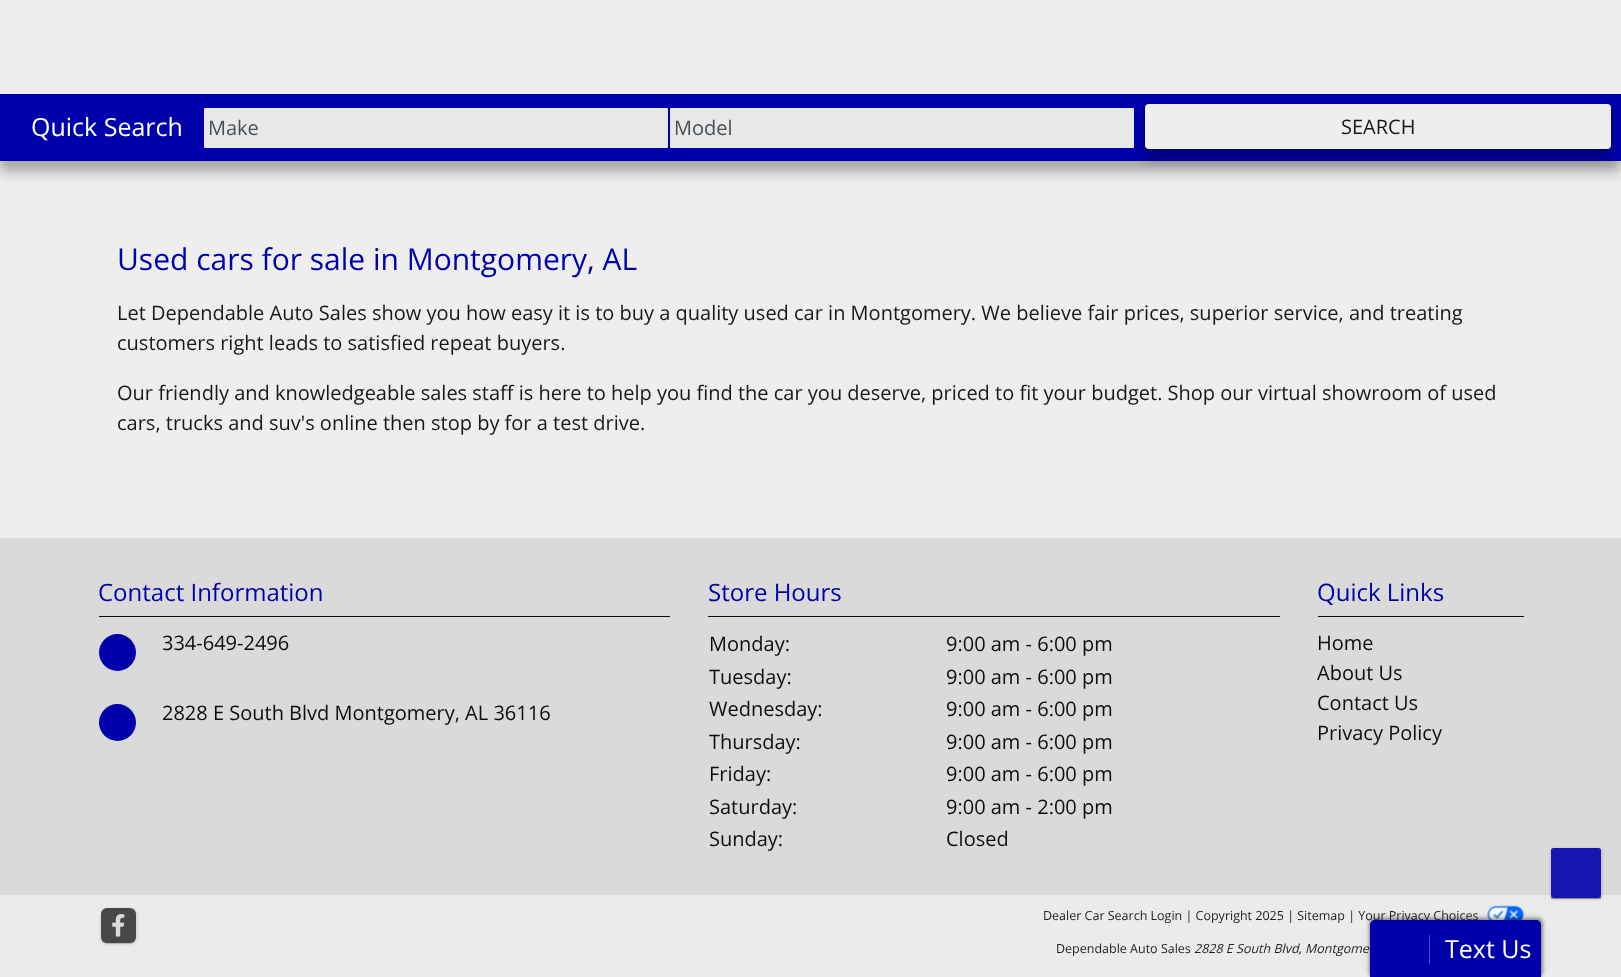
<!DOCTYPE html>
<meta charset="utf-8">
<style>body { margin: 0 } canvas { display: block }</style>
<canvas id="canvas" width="1621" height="977"></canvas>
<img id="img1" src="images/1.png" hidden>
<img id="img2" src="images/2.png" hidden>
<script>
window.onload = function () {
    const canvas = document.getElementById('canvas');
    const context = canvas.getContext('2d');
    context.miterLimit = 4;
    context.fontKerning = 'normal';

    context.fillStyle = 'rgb(238, 238, 238)';
    context.fillRect(0, 0, 1621, 977);
    context.save();
    context.beginPath();
    context.moveTo(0, 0);
    context.lineTo(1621, 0);
    context.lineTo(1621, 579);
    context.lineTo(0, 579);
    context.closePath();
    context.moveTo(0, -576);
    context.lineTo(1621, -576);
    context.lineTo(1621, 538);
    context.lineTo(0, 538);
    context.closePath();
    context.clip('evenodd');
    context.fillStyle = 'rgba(0, 0, 0, 0.18)';
    context.filter = 'blur(10px)';
    context.beginPath();
    context.rect(0, -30, 1621, 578);
    context.fill();
    context.filter = 'none';
    context.restore();
    context.fillStyle = 'rgba(0, 0, 0, 0.1)';
    context.filter = 'blur(3px)';
    context.beginPath();
    context.rect(0, 100, 1621, 68);
    context.fill();
    context.filter = 'none';
    context.fillStyle = 'rgba(0, 0, 0, 0.2)';
    context.filter = 'blur(6px)';
    context.beginPath();
    context.rect(0, 106, 1621, 68);
    context.fill();
    context.filter = 'none';
    context.fillStyle = 'rgb(0, 0, 171)';
    context.fillRect(0, 94, 1621, 67);
    context.fillStyle = 'rgb(232, 232, 232)';
    context.beginPath();
    context.roundRect(204, 108, 464, 40, 1);
    context.fill();
    context.beginPath();
    context.roundRect(670, 108, 464, 40, 1);
    context.fill();
    context.fillStyle = 'rgba(0, 0, 0, 0.1)';
    context.filter = 'blur(3px)';
    context.beginPath();
    context.roundRect(1145, 110, 466, 45, 4);
    context.fill();
    context.filter = 'none';
    context.fillStyle = 'rgba(0, 0, 0, 0.2)';
    context.filter = 'blur(6px)';
    context.beginPath();
    context.roundRect(1145, 116, 466, 45, 4);
    context.fill();
    context.filter = 'none';
    context.fillStyle = 'rgb(238, 238, 238)';
    context.beginPath();
    context.roundRect(1145, 104, 466, 45, 4);
    context.fill();
    context.fillStyle = 'rgb(218, 218, 218)';
    context.fillRect(0, 538, 1621, 357);
    context.fillStyle = 'rgb(14, 14, 14)';
    context.fillRect(99, 616, 571, 1);
    context.fillStyle = 'rgb(0, 0, 171)';
    context.beginPath();
    context.arc(117.5, 652.5, 18.5, 0, 2 * Math.PI);
    context.fill();
    context.beginPath();
    context.arc(117.5, 722.5, 18.5, 0, 2 * Math.PI);
    context.fill();
    context.fillStyle = 'rgb(14, 14, 14)';
    context.fillRect(708, 616, 572, 1);
    context.fillRect(1318, 616, 206, 1);
    context.fillStyle = 'rgb(235, 235, 235)';
    context.fillRect(0, 895, 1621, 82);
    context.fillStyle = 'rgba(47, 47, 47, 0.2)';
    context.filter = 'blur(0.5px)';
    context.beginPath();
    context.roundRect(101, 909, 35, 35, 6);
    context.fill();
    context.filter = 'none';
    context.fillStyle = 'rgba(47, 47, 47, 0.1)';
    context.filter = 'blur(1px)';
    context.beginPath();
    context.roundRect(100, 908, 38, 37, 8);
    context.fill();
    context.filter = 'none';
    context.fillStyle = 'rgb(72, 72, 72)';
    context.beginPath();
    context.roundRect(101, 908, 35, 35, 6);
    context.fill();
    context.drawImage(document.getElementById('img1'), 112, 914, 13, 23);
    context.drawImage(document.getElementById('img2'), 1487, 905, 37, 15);
    context.save();
    context.beginPath();
    context.moveTo(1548, 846);
    context.lineTo(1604, 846);
    context.lineTo(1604, 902);
    context.lineTo(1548, 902);
    context.closePath();
    context.moveTo(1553.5, 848);
    context.lineTo(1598.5, 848);
    context.bezierCurveTo(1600, 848, 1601, 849, 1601, 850.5);
    context.lineTo(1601, 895.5);
    context.bezierCurveTo(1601, 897, 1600, 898, 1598.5, 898);
    context.lineTo(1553.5, 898);
    context.bezierCurveTo(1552, 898, 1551, 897, 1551, 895.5);
    context.lineTo(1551, 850.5);
    context.bezierCurveTo(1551, 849, 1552, 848, 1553.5, 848);
    context.closePath();
    context.clip('evenodd');
    context.fillStyle = 'rgba(0, 0, 0, 0.2)';
    context.filter = 'blur(0.5px)';
    context.beginPath();
    context.roundRect(1551, 849, 50, 50, 2.5);
    context.fill();
    context.filter = 'none';
    context.restore();
    context.save();
    context.beginPath();
    context.moveTo(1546, 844);
    context.lineTo(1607, 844);
    context.lineTo(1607, 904);
    context.lineTo(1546, 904);
    context.closePath();
    context.moveTo(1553.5, 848);
    context.lineTo(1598.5, 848);
    context.bezierCurveTo(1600, 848, 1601, 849, 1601, 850.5);
    context.lineTo(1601, 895.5);
    context.bezierCurveTo(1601, 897, 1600, 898, 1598.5, 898);
    context.lineTo(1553.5, 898);
    context.bezierCurveTo(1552, 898, 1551, 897, 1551, 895.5);
    context.lineTo(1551, 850.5);
    context.bezierCurveTo(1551, 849, 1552, 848, 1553.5, 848);
    context.closePath();
    context.clip('evenodd');
    context.fillStyle = 'rgba(0, 0, 0, 0.1)';
    context.filter = 'blur(1px)';
    context.beginPath();
    context.roundRect(1550, 848, 53, 52, 4);
    context.fill();
    context.filter = 'none';
    context.restore();
    context.fillStyle = 'rgba(0, 0, 171, 0.9)';
    context.beginPath();
    context.roundRect(1551, 848, 50, 50, 2.5);
    context.fill();
    context.save();
    context.beginPath();
    context.moveTo(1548, 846);
    context.lineTo(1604, 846);
    context.lineTo(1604, 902);
    context.lineTo(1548, 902);
    context.closePath();
    context.moveTo(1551, 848);
    context.lineTo(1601, 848);
    context.lineTo(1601, 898);
    context.lineTo(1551, 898);
    context.closePath();
    context.clip('evenodd');
    context.fillStyle = 'rgba(0, 0, 0, 0.2)';
    context.filter = 'blur(0.5px)';
    context.beginPath();
    context.rect(1551, 849, 50, 50);
    context.fill();
    context.filter = 'none';
    context.restore();
    context.fillStyle = 'rgba(0, 0, 0, 0.25)';
    context.filter = 'blur(1px)';
    context.beginPath();
    context.roundRect(1369, 918, 174, 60, 6);
    context.fill();
    context.filter = 'none';
    context.fillStyle = 'rgba(0, 0, 0, 0.15)';
    context.filter = 'blur(2px)';
    context.beginPath();
    context.roundRect(1368, 916, 176, 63, 8);
    context.fill();
    context.filter = 'none';
    context.font = '25px Open Sans';
    context.fillStyle = 'rgb(255, 255, 255)';
    context.fillText('Quick Search', 31, 136);
    context.font = '20px Open Sans';
    context.fillStyle = 'rgb(73, 80, 87)';
    context.fillText('Make', 208, 135);
    context.fillText('Model', 674, 135);
    context.fillStyle = 'rgb(24, 24, 24)';
    context.fillText('SEARCH', 1341, 134);
    context.font = '30px Open Sans';
    context.fillStyle = 'rgb(0, 0, 171)';
    context.fillText('Used cars for sale in Montgomery, AL', 117, 270);
    context.font = '20px Open Sans';
    context.fillStyle = 'rgb(24, 24, 24)';
    context.fillText('Let Dependable Auto Sales show you how easy it is to buy a quality used car in Montgomery. We believe fair prices, superior service, and treating', 117, 320);
    context.fillText('customers right leads to satisfied repeat buyers.', 117, 350);
    context.fillText('Our friendly and knowledgeable sales staff is here to help you find the car you deserve, priced to fit your budget. Shop our virtual showroom of used', 117, 400);
    context.fillText('cars, trucks and suv\'s online then stop by for a test drive.', 117, 430);
    context.font = '24px Open Sans';
    context.fillStyle = 'rgb(0, 0, 171)';
    context.fillText('Contact Information', 98, 601);
    context.font = '20px Open Sans';
    context.fillStyle = 'rgb(14, 14, 14)';
    context.fillText('334-649-2496', 162, 650);
    context.fillText('2828 E South Blvd Montgomery, AL 36116', 162, 720);
    context.font = '24px Open Sans';
    context.fillStyle = 'rgb(0, 0, 171)';
    context.fillText('Store Hours', 708, 601);
    context.font = '20px Open Sans';
    context.fillStyle = 'rgb(14, 14, 14)';
    context.fillText('Monday:', 709, 651);
    context.fillText('9:00 am - 6:00 pm', 946, 651);
    context.fillText('Tuesday:', 709, 684);
    context.fillText('9:00 am - 6:00 pm', 946, 684);
    context.fillText('Wednesday:', 709, 716);
    context.fillText('9:00 am - 6:00 pm', 946, 716);
    context.fillText('Thursday:', 709, 749);
    context.fillText('9:00 am - 6:00 pm', 946, 749);
    context.fillText('Friday:', 709, 781);
    context.fillText('9:00 am - 6:00 pm', 946, 781);
    context.fillText('Saturday:', 709, 814);
    context.fillText('9:00 am - 2:00 pm', 946, 814);
    context.fillText('Sunday:', 709, 846);
    context.fillText('Closed', 946, 846);
    context.font = '24px Open Sans';
    context.fillStyle = 'rgb(0, 0, 171)';
    context.fillText('Quick Links', 1317, 601);
    context.font = '20px Open Sans';
    context.fillStyle = 'rgb(14, 14, 14)';
    context.fillText('Home', 1317, 650);
    context.fillText('About Us', 1317, 680);
    context.fillText('Contact Us', 1317, 710);
    context.fillText('Privacy Policy', 1317, 740);
    context.font = '12.5px Open Sans';
    context.fillStyle = 'rgb(31, 31, 31)';
    context.fillText('Dealer Car Search Login | Copyright 2025 | Sitemap | Your Privacy Choices', 1043, 920);
    context.fillText('Dependable Auto Sales', 1056, 953);
    context.font = 'italic 12.5px Open Sans';
    context.fillText('2828 E South Blvd, Montgome', 1194, 953);
    context.fillStyle = 'rgb(0, 0, 171)';
    context.beginPath();
    context.moveTo(1375, 920);
    context.lineTo(1536, 920);
    context.bezierCurveTo(1539, 920, 1541, 922, 1541, 925);
    context.lineTo(1541, 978);
    context.lineTo(1370, 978);
    context.lineTo(1370, 925);
    context.bezierCurveTo(1370, 922, 1372, 920, 1375, 920);
    context.closePath();
    context.fill();
    context.fillStyle = 'rgb(77, 77, 196)';
    context.fillRect(1429, 935, 1, 29);
    context.font = '25px Open Sans';
    context.fillStyle = 'rgb(255, 255, 255)';
    context.fillText('Text Us', 1445, 958);
};
</script>
